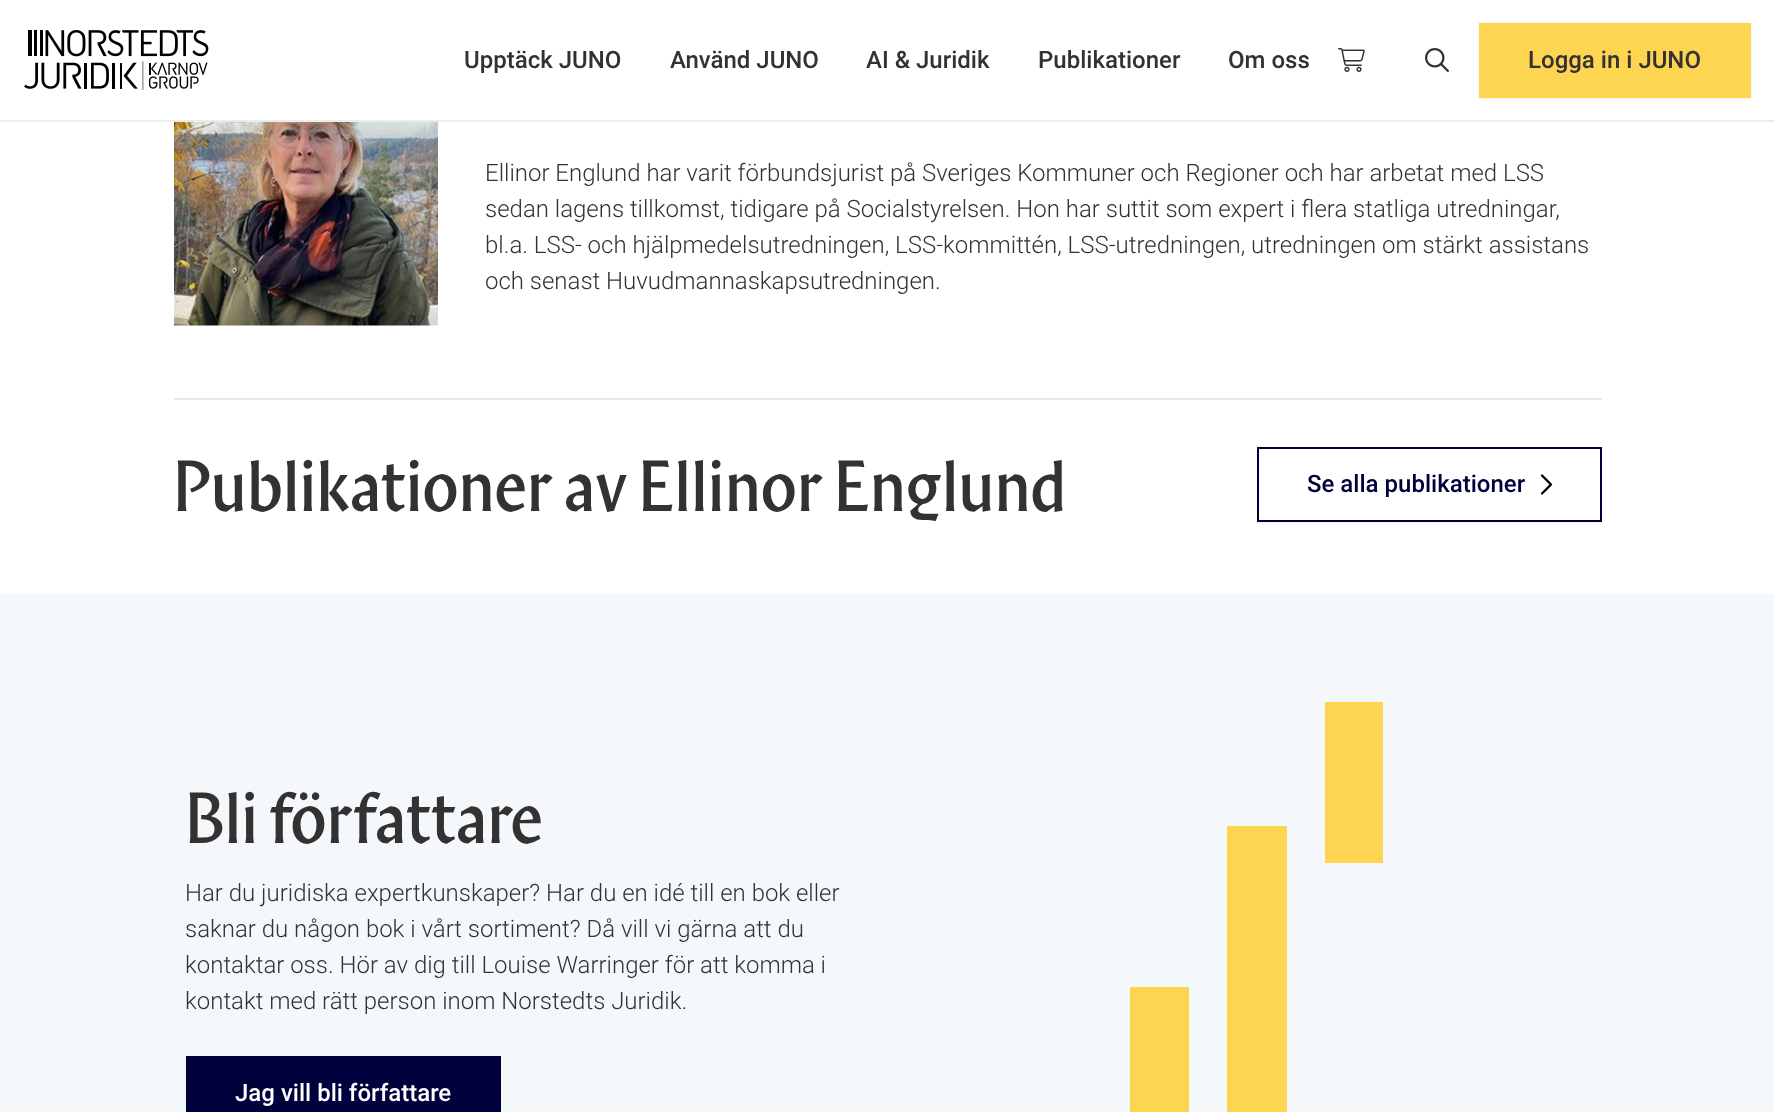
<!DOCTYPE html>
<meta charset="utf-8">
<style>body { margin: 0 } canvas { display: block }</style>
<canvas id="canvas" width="1774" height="1112"></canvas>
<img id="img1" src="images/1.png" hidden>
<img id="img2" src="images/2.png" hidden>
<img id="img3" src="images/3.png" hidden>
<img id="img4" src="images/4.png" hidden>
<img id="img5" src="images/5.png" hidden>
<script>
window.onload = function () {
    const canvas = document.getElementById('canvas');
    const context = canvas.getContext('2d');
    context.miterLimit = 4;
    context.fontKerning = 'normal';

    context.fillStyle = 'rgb(255, 255, 255)';
    context.fillRect(0, 0, 1774, 1112);
    context.fillStyle = 'rgb(237, 236, 236)';
    context.fillRect(0, 120, 1774, 2);
    context.drawImage(document.getElementById('img1'), 24, 30, 185, 60);
    context.drawImage(document.getElementById('img2'), 1338, 48, 27, 24);
    context.drawImage(document.getElementById('img3'), 1425, 48, 24, 24);
    context.fillStyle = 'rgba(0, 0, 0, 0.05)';
    context.filter = 'blur(1.5px)';
    context.beginPath();
    context.rect(1479, 24, 272, 75);
    context.fill();
    context.filter = 'none';
    context.fillStyle = 'rgb(253, 213, 81)';
    context.fillRect(1479, 23, 272, 75);
    context.drawImage(document.getElementById('img4'), 174, 122, 264, 204);
    context.fillStyle = 'rgb(229, 231, 235)';
    context.fillRect(174, 398, 1428, 2);
    context.save();
    context.beginPath();
    context.rect(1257, 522, 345, 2);
    context.clip();
    context.fillStyle = 'rgba(0, 0, 0, 0.05)';
    context.filter = 'blur(1.5px)';
    context.beginPath();
    context.rect(1257, 449, 345, 75);
    context.fill();
    context.filter = 'none';
    context.restore();
    context.strokeStyle = 'rgb(0, 0, 60)';
    context.lineWidth = 2;
    context.strokeRect(1258, 448, 343, 73);
    context.drawImage(document.getElementById('img5'), 1540, 474, 13, 21);
    context.fillStyle = 'rgb(244, 248, 251)';
    context.fillRect(0, 594, 1774, 518);
    context.fillStyle = 'rgb(0, 0, 60)';
    context.fillRect(186, 1056, 315, 56);
    context.fillStyle = 'rgb(253, 213, 81)';
    context.fillRect(1325, 702, 58, 161);
    context.fillRect(1227, 826, 60, 286);
    context.fillRect(1130, 987, 59, 125);
    context.font = '500 24px Roboto';
    context.fillStyle = 'rgb(51, 49, 50)';
    context.fillText('Upptäck JUNO', 464, 68);
    context.fillText('Använd JUNO', 670, 68);
    context.fillText('AI & Juridik', 866, 68);
    context.fillText('Publikationer', 1038, 68);
    context.fillText('Om oss', 1228, 68);
    context.fillText('Logga in i JUNO', 1528, 68);
    context.font = '300 24px Roboto';
    context.fillText('Ellinor Englund har varit förbundsjurist på Sveriges Kommuner och Regioner och har arbetat med LSS', 485, 181);
    context.fillText('sedan lagens tillkomst, tidigare på Socialstyrelsen. Hon har suttit som expert i flera statliga utredningar,', 485, 217);
    context.fillText('bl.a. LSS- och hjälpmedelsutredningen, LSS-kommittén, LSS-utredningen, utredningen om stärkt assistans', 485, 253);
    context.fillText('och senast Huvudmannaskapsutredningen.', 485, 289);
    context.font = '72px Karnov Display';
    context.fillText('Publikationer av Ellinor Englund', 173, 511);
    context.font = '500 24px Roboto';
    context.fillStyle = 'rgb(0, 0, 60)';
    context.fillText('Se alla publikationer', 1307, 492);
    context.font = '72px Karnov Display';
    context.fillStyle = 'rgb(51, 49, 50)';
    context.fillText('Bli författare', 185, 843);
    context.font = '300 24px Roboto';
    context.fillText('Har du juridiska expertkunskaper? Har du en idé till en bok eller', 185, 901);
    context.fillText('saknar du någon bok i vårt sortiment? Då vill vi gärna att du', 185, 937);
    context.fillText('kontaktar oss. Hör av dig till Louise Warringer för att komma i', 185, 973);
    context.fillText('kontakt med rätt person inom Norstedts Juridik.', 185, 1009);
    context.font = '500 24px Roboto';
    context.fillStyle = 'rgb(255, 255, 255)';
    context.fillText('Jag vill bli författare', 235, 1101);
};
</script>
